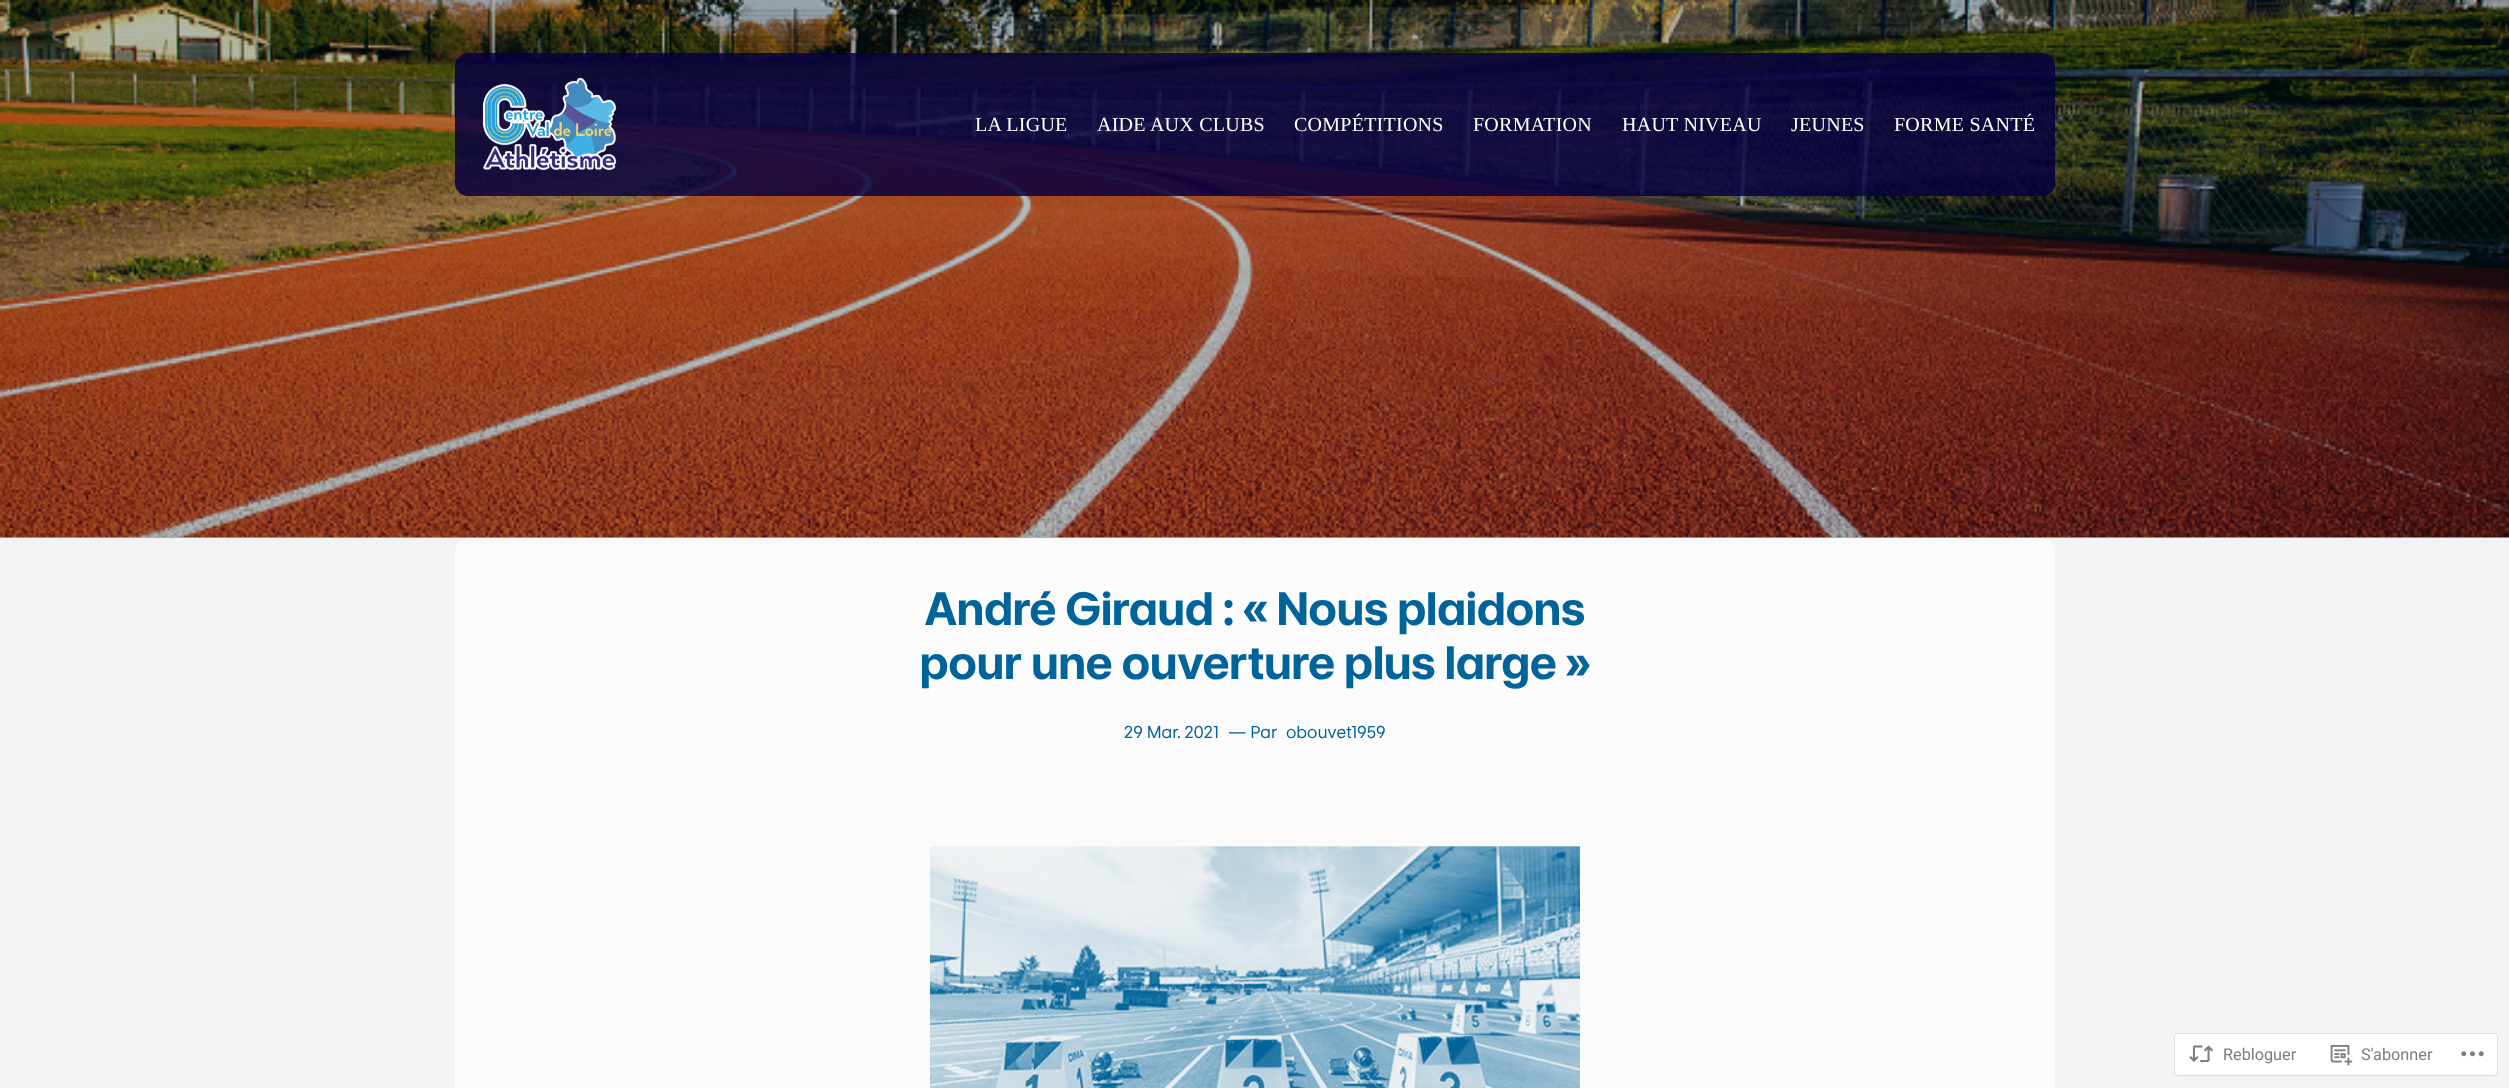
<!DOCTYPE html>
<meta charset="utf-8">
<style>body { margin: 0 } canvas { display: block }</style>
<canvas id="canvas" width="2509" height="1088"></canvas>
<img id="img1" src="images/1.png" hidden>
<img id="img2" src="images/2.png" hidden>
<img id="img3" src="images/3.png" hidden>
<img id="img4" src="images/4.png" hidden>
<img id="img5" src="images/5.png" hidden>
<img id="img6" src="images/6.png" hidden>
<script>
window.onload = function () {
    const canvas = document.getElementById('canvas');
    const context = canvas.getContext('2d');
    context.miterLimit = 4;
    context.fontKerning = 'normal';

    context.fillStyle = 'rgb(241, 243, 244)';
    context.fillRect(0, 0, 2509, 1088);
    context.fillStyle = 'rgb(169, 178, 183)';
    context.fillRect(0, 537, 2509, 1);
    context.drawImage(document.getElementById('img1'), 0, 0, 2509, 538);
    context.fillStyle = 'rgba(6, 0, 64, 0.84)';
    context.beginPath();
    context.roundRect(455, 53, 1600, 143, 13);
    context.fill();
    context.drawImage(document.getElementById('img2'), 482, 77, 135, 94);
    context.fillStyle = 'rgb(251, 251, 251)';
    context.beginPath();
    context.roundRect(455, 538, 1600, 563, 13);
    context.fill();
    context.drawImage(document.getElementById('img3'), 930, 846, 650, 242);
    context.fillStyle = 'rgb(255, 255, 255)';
    context.beginPath();
    context.roundRect(2174.5, 1033.5, 323, 42, 3.5);
    context.fill();
    context.strokeStyle = 'rgb(220, 220, 222)';
    context.stroke();
    context.drawImage(document.getElementById('img4'), 2189, 1045, 25, 18);
    context.drawImage(document.getElementById('img5'), 2330, 1045, 23, 21);
    context.drawImage(document.getElementById('img6'), 2461, 1051, 23, 6);
    context.letterSpacing = '0.25px';
    context.font = '20px Liberation Serif';
    context.fillText('LA LIGUE', 975, 131);
    context.fillText('AIDE AUX CLUBS', 1097, 131);
    context.fillText('COMPÉTITIONS', 1294, 131);
    context.fillText('FORMATION', 1473, 131);
    context.fillText('HAUT NIVEAU', 1622, 131);
    context.fillText('JEUNES', 1791, 131);
    context.fillText('FORME SANTÉ', 1894, 131);
    context.letterSpacing = '0.5px';
    context.font = 'bold 45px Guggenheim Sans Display';
    context.fillStyle = 'rgb(0, 99, 153)';
    context.fillText('André Giraud : « Nous plaidons', 925, 625);
    context.fillText('pour une ouverture plus large »', 920, 679);
    context.letterSpacing = '0px';
    context.font = '16.5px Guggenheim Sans';
    context.fillText('29 Mar. 2021', 1124, 738);
    context.fillText('— Par', 1228, 738);
    context.fillText('obouvet1959', 1286, 738);
    context.font = '16.25px Roboto';
    context.fillStyle = 'rgb(122, 126, 132)';
    context.fillText('Rebloguer', 2223, 1060);
    context.fillText('S\'abonner', 2361, 1060);
};
</script>
